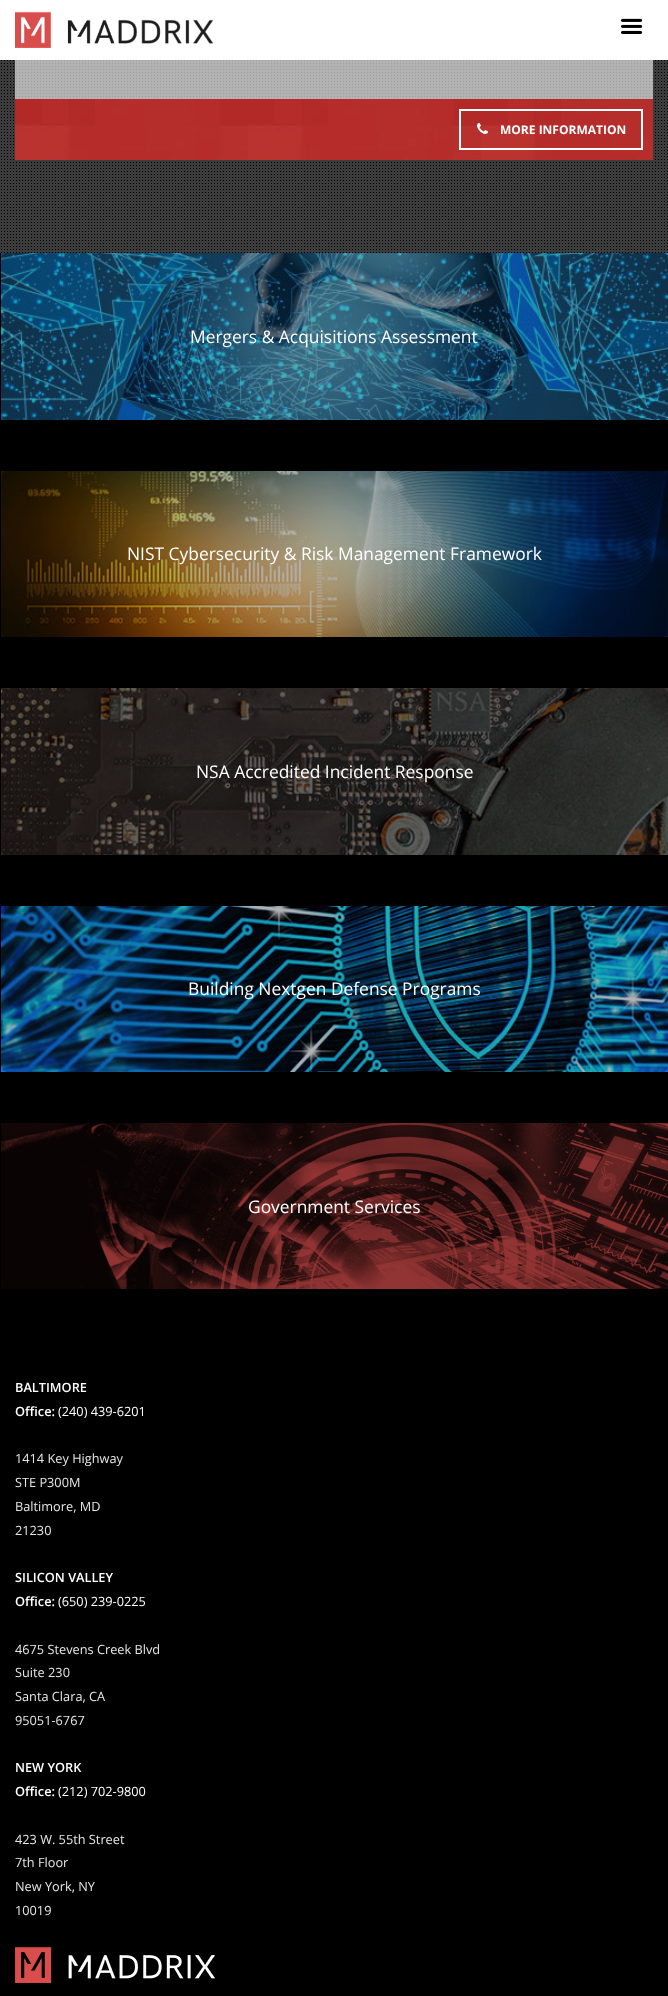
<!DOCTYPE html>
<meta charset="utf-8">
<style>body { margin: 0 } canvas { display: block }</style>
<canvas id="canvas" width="668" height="1996"></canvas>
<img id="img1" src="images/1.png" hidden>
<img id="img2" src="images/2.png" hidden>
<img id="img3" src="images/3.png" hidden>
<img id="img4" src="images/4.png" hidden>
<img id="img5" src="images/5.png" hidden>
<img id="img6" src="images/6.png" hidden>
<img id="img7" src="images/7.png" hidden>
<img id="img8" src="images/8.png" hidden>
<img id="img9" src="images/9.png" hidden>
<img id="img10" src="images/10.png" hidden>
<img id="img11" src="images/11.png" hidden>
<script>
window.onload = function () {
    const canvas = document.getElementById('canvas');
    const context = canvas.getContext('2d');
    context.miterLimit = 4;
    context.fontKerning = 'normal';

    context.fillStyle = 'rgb(84, 84, 84)';
    context.fillRect(0, 0, 668, 1996);
    context.fillStyle = 'rgb(255, 255, 255)';
    context.fillRect(0, 0, 668, 60);
    context.drawImage(document.getElementById('img1'), 15, 11, 198, 37);
    context.drawImage(document.getElementById('img2'), 621, 18, 22, 16);
    context.drawImage(document.getElementById('img3'), 0, 60, 668, 193);
    context.fillStyle = 'rgba(237, 237, 237, 0.67)';
    context.fillRect(15, 60, 638, 39);
    context.drawImage(document.getElementById('img4'), 15, 99, 638, 61);
    context.strokeStyle = 'rgb(255, 255, 255)';
    context.lineWidth = 2;
    context.strokeRect(460, 110, 182, 39);
    context.drawImage(document.getElementById('img5'), 477, 123, 11, 11);
    context.fillStyle = 'rgb(0, 0, 0)';
    context.fillRect(0, 253, 668, 1743);
    context.drawImage(document.getElementById('img6'), 1, 253, 667, 167);
    context.drawImage(document.getElementById('img7'), 1, 471, 667, 166);
    context.drawImage(document.getElementById('img8'), 1, 688, 667, 167);
    context.drawImage(document.getElementById('img9'), 1, 906, 667, 166);
    context.drawImage(document.getElementById('img10'), 1, 1123, 667, 166);
    context.drawImage(document.getElementById('img11'), 15, 1947, 200, 36);
    context.font = 'bold 12px Open Sans';
    context.fillStyle = 'rgb(255, 255, 255)';
    context.fillText('MORE INFORMATION', 500, 134);
    context.font = '17.4px Open Sans';
    context.fillText('Mergers & Acquisitions Assessment', 190, 343);
    context.fillText('NIST Cybersecurity & Risk Management Framework', 127, 560);
    context.fillText('NSA Accredited Incident Response', 196, 778);
    context.fillText('Building Nextgen Defense Programs', 188, 995);
    context.fillText('Government Services', 248, 1213);
    context.font = '600 12.75px Open Sans';
    context.fillText('BALTIMORE', 15, 1392);
    context.fillText('Office:', 15, 1416);
    context.font = '12.75px Open Sans';
    context.fillText('(240) 439-6201', 58, 1416);
    context.fillStyle = 'rgb(230, 230, 230)';
    context.fillText('1414 Key Highway', 15, 1463);
    context.fillText('STE P300M', 15, 1487);
    context.fillText('Baltimore, MD', 15, 1511);
    context.fillText('21230', 15, 1535);
    context.font = '600 12.75px Open Sans';
    context.fillStyle = 'rgb(255, 255, 255)';
    context.fillText('SILICON VALLEY', 15, 1582);
    context.fillText('Office:', 15, 1606);
    context.font = '12.75px Open Sans';
    context.fillText('(650) 239-0225', 58, 1606);
    context.fillStyle = 'rgb(230, 230, 230)';
    context.fillText('4675 Stevens Creek Blvd', 15, 1654);
    context.fillText('Suite 230', 15, 1677);
    context.fillText('Santa Clara, CA', 15, 1701);
    context.fillText('95051-6767', 15, 1725);
    context.font = '600 12.75px Open Sans';
    context.fillStyle = 'rgb(255, 255, 255)';
    context.fillText('NEW YORK', 15, 1772);
    context.fillText('Office:', 15, 1796);
    context.font = '12.75px Open Sans';
    context.fillText('(212) 702-9800', 58, 1796);
    context.fillStyle = 'rgb(230, 230, 230)';
    context.fillText('423 W. 55th Street', 15, 1844);
    context.fillText('7th Floor', 15, 1867);
    context.fillText('New York, NY', 15, 1891);
    context.fillText('10019', 15, 1915);
};
</script>
